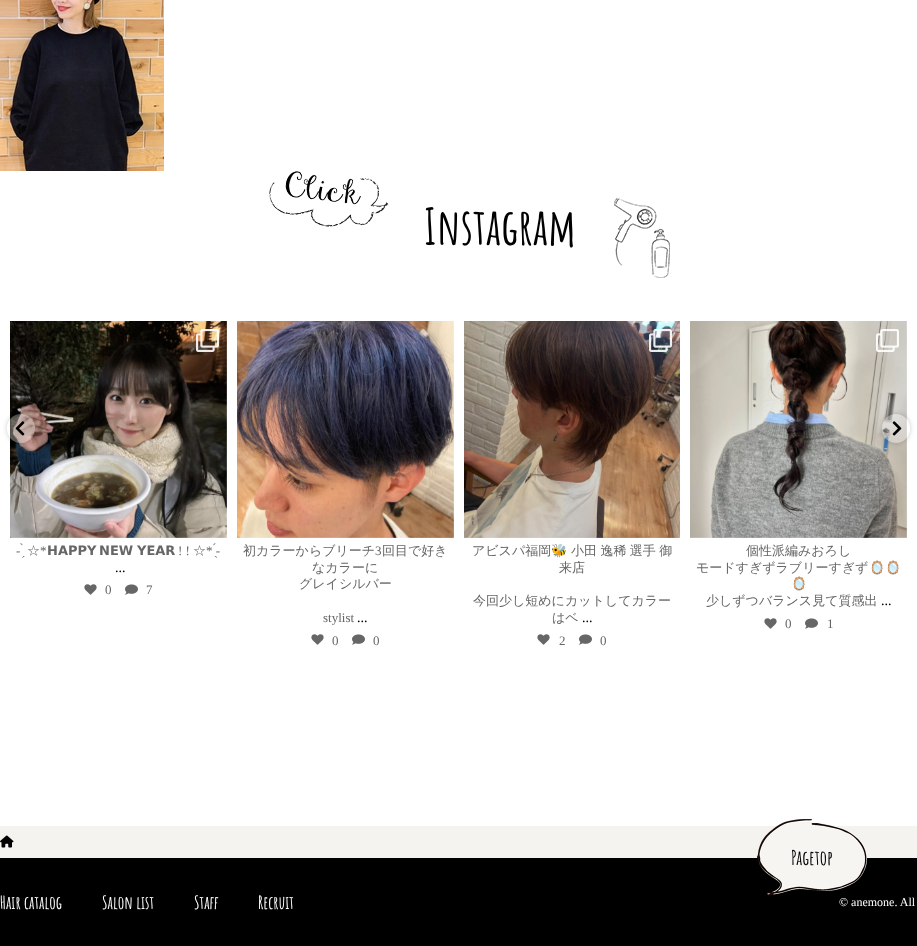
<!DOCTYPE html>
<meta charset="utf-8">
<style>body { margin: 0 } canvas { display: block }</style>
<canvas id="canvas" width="917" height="946"></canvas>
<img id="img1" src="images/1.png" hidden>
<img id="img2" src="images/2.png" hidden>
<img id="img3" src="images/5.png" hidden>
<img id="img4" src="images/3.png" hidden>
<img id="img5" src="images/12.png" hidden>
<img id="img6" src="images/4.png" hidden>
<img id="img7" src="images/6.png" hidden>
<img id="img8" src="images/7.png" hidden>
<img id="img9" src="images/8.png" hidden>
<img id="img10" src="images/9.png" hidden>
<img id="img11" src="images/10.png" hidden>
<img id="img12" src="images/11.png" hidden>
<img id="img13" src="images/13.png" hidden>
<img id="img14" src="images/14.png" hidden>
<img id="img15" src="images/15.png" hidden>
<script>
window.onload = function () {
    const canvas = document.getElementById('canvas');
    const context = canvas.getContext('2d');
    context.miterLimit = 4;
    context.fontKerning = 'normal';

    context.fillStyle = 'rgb(255, 255, 255)';
    context.fillRect(0, 0, 917, 946);
    context.drawImage(document.getElementById('img1'), 0, 0, 164, 171);
    context.drawImage(document.getElementById('img2'), 269, 171, 401, 107);
    context.drawImage(document.getElementById('img3'), 10, 321, 217, 217);
    context.save();
    context.beginPath();
    context.moveTo(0, 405);
    context.lineTo(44, 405);
    context.lineTo(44, 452);
    context.lineTo(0, 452);
    context.closePath();
    context.moveTo(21, 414);
    context.bezierCurveTo(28.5, 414, 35, 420.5, 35, 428);
    context.lineTo(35, 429);
    context.bezierCurveTo(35, 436.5, 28.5, 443, 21, 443);
    context.bezierCurveTo(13.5, 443, 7, 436.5, 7, 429);
    context.lineTo(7, 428);
    context.bezierCurveTo(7, 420.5, 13.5, 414, 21, 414);
    context.closePath();
    context.clip('evenodd');
    context.fillStyle = 'rgba(0, 0, 0, 0.2)';
    context.filter = 'blur(2.5px)';
    context.beginPath();
    context.roundRect(7, 414, 28, 29, 14);
    context.fill();
    context.filter = 'none';
    context.restore();
    context.fillStyle = 'rgba(255, 255, 255, 0.3)';
    context.beginPath();
    context.roundRect(7, 414, 28, 29, 14);
    context.fill();
    context.drawImage(document.getElementById('img4'), 15, 421, 10, 15);
    context.drawImage(document.getElementById('img5'), 690, 321, 217, 217);
    context.save();
    context.beginPath();
    context.moveTo(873, 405);
    context.lineTo(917, 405);
    context.lineTo(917, 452);
    context.lineTo(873, 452);
    context.closePath();
    context.moveTo(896, 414);
    context.bezierCurveTo(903.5, 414, 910, 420.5, 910, 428);
    context.lineTo(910, 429);
    context.bezierCurveTo(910, 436.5, 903.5, 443, 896, 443);
    context.bezierCurveTo(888.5, 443, 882, 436.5, 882, 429);
    context.lineTo(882, 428);
    context.bezierCurveTo(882, 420.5, 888.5, 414, 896, 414);
    context.closePath();
    context.clip('evenodd');
    context.fillStyle = 'rgba(0, 0, 0, 0.2)';
    context.filter = 'blur(2.5px)';
    context.beginPath();
    context.roundRect(882, 414, 28, 29, 14);
    context.fill();
    context.filter = 'none';
    context.restore();
    context.beginPath();
    context.roundRect(882, 414, 28, 29, 14);
    context.fill();
    context.drawImage(document.getElementById('img6'), 892, 421, 10, 15);
    context.drawImage(document.getElementById('img7'), 196, 329, 23, 23);
    context.drawImage(document.getElementById('img8'), 84, 584, 13, 11);
    context.drawImage(document.getElementById('img9'), 125, 584, 13, 11);
    context.drawImage(document.getElementById('img10'), 237, 321, 217, 217);
    context.drawImage(document.getElementById('img8'), 311, 634, 13, 11);
    context.drawImage(document.getElementById('img9'), 352, 634, 13, 11);
    context.drawImage(document.getElementById('img11'), 464, 321, 216, 217);
    context.drawImage(document.getElementById('img12'), 649, 329, 23, 23);
    context.drawImage(document.getElementById('img8'), 537, 634, 13, 11);
    context.drawImage(document.getElementById('img9'), 579, 634, 13, 11);
    context.drawImage(document.getElementById('img13'), 876, 329, 23, 23);
    context.drawImage(document.getElementById('img8'), 764, 618, 13, 11);
    context.drawImage(document.getElementById('img9'), 805, 618, 13, 11);
    context.fillStyle = 'rgb(244, 243, 239)';
    context.fillRect(0, 826, 917, 32);
    context.drawImage(document.getElementById('img14'), 0, 835, 14, 13);
    context.fillStyle = 'rgb(0, 0, 0)';
    context.fillRect(0, 858, 917, 88);
    context.drawImage(document.getElementById('img15'), 757, 819, 110, 77);
    context.font = 'bold 50px Amatic SC';
    context.fillText('Instagram', 424, 245);
    context.font = '13px Liberation Serif';
    context.fillStyle = 'rgb(102, 102, 102)';
    context.fillText('- ̗̀', 16, 555);
    context.font = '500 13px WenQuanYi Zen Hei';
    context.fillText('☆', 27, 555);
    context.font = '13px Liberation Serif';
    context.fillText('*', 40, 555);
    context.font = 'bold 13px DejaVu Sans';
    context.fillText('𝗛𝗔𝗣𝗣𝗬', 47, 555);
    context.fillText('𝗡𝗘𝗪', 99, 555);
    context.fillText('𝗬𝗘𝗔𝗥', 137, 555);
    context.font = '13px Liberation Serif';
    context.fillText('! !', 178, 555);
    context.font = '500 13px WenQuanYi Zen Hei';
    context.fillText('☆', 193, 555);
    context.font = '13px Liberation Serif';
    context.fillText('* ̖́-', 206, 555);
    context.font = '14px Liberation Serif';
    context.fillStyle = 'rgb(0, 0, 0)';
    context.fillText('...', 115, 572);
    context.font = '13px Liberation Serif';
    context.fillStyle = 'rgb(102, 102, 102)';
    context.fillText('0', 105, 594);
    context.fillText('7', 146, 594);
    context.font = '500 13px WenQuanYi Zen Hei';
    context.fillText('初カラーからブリーチ', 243, 555);
    context.font = '13px Liberation Serif';
    context.fillText('3', 375, 555);
    context.font = '500 13px WenQuanYi Zen Hei';
    context.fillText('回目で好き', 382, 555);
    context.fillText('なカラーに', 312, 572);
    context.fillText('グレイシルバー', 299, 588);
    context.font = '13px Liberation Serif';
    context.fillText('stylist', 323, 622);
    context.font = '14px Liberation Serif';
    context.fillStyle = 'rgb(0, 0, 0)';
    context.fillText('...', 357, 622);
    context.font = '13px Liberation Serif';
    context.fillStyle = 'rgb(102, 102, 102)';
    context.fillText('0', 332, 645);
    context.fillText('0', 373, 645);
    context.font = '500 13px WenQuanYi Zen Hei';
    context.fillText('アビスパ福岡', 472, 555);
    context.font = '13px Noto Color Emoji';
    context.fillText('🐝', 551, 555);
    context.wordSpacing = '-0.5px';
    context.font = '500 13px WenQuanYi Zen Hei';
    context.fillText('小田 逸稀 選手 御', 571, 555);
    context.wordSpacing = '0px';
    context.fillText('来店', 559, 572);
    context.fillText('今回少し短めにカットしてカラー', 473, 605);
    context.fillText('はベ', 552, 622);
    context.font = '14px Liberation Serif';
    context.fillStyle = 'rgb(0, 0, 0)';
    context.fillText('...', 582, 622);
    context.font = '13px Liberation Serif';
    context.fillStyle = 'rgb(102, 102, 102)';
    context.fillText('2', 559, 645);
    context.fillText('0', 600, 645);
    context.font = '500 13px WenQuanYi Zen Hei';
    context.fillText('個性派編みおろし', 746, 555);
    context.fillText('モードすぎずラブリーすぎず', 696, 572);
    context.font = '13px Noto Color Emoji';
    context.fillText('🪞🪞', 869, 572);
    context.fillText('🪞', 791, 588);
    context.font = '500 13px WenQuanYi Zen Hei';
    context.fillText('少しずつバランス見て質感出', 706, 605);
    context.font = '14px Liberation Serif';
    context.fillStyle = 'rgb(0, 0, 0)';
    context.fillText('...', 881, 605);
    context.font = '13px Liberation Serif';
    context.fillStyle = 'rgb(102, 102, 102)';
    context.fillText('0', 785, 628);
    context.fillText('1', 827, 628);
    context.font = 'bold 20px Amatic SC';
    context.fillStyle = 'rgb(0, 0, 0)';
    context.fillText('Pagetop', 791, 865);
    context.font = 'bold 18px Amatic SC';
    context.fillStyle = 'rgb(255, 255, 255)';
    context.fillText('Hair catalog', 0, 909);
    context.fillText('Salon list', 102, 909);
    context.fillText('Staff', 194, 909);
    context.fillText('Recruit', 258, 909);
    context.font = '12px Liberation Serif';
    context.fillText('© anemone. All', 839, 906);
};
</script>
